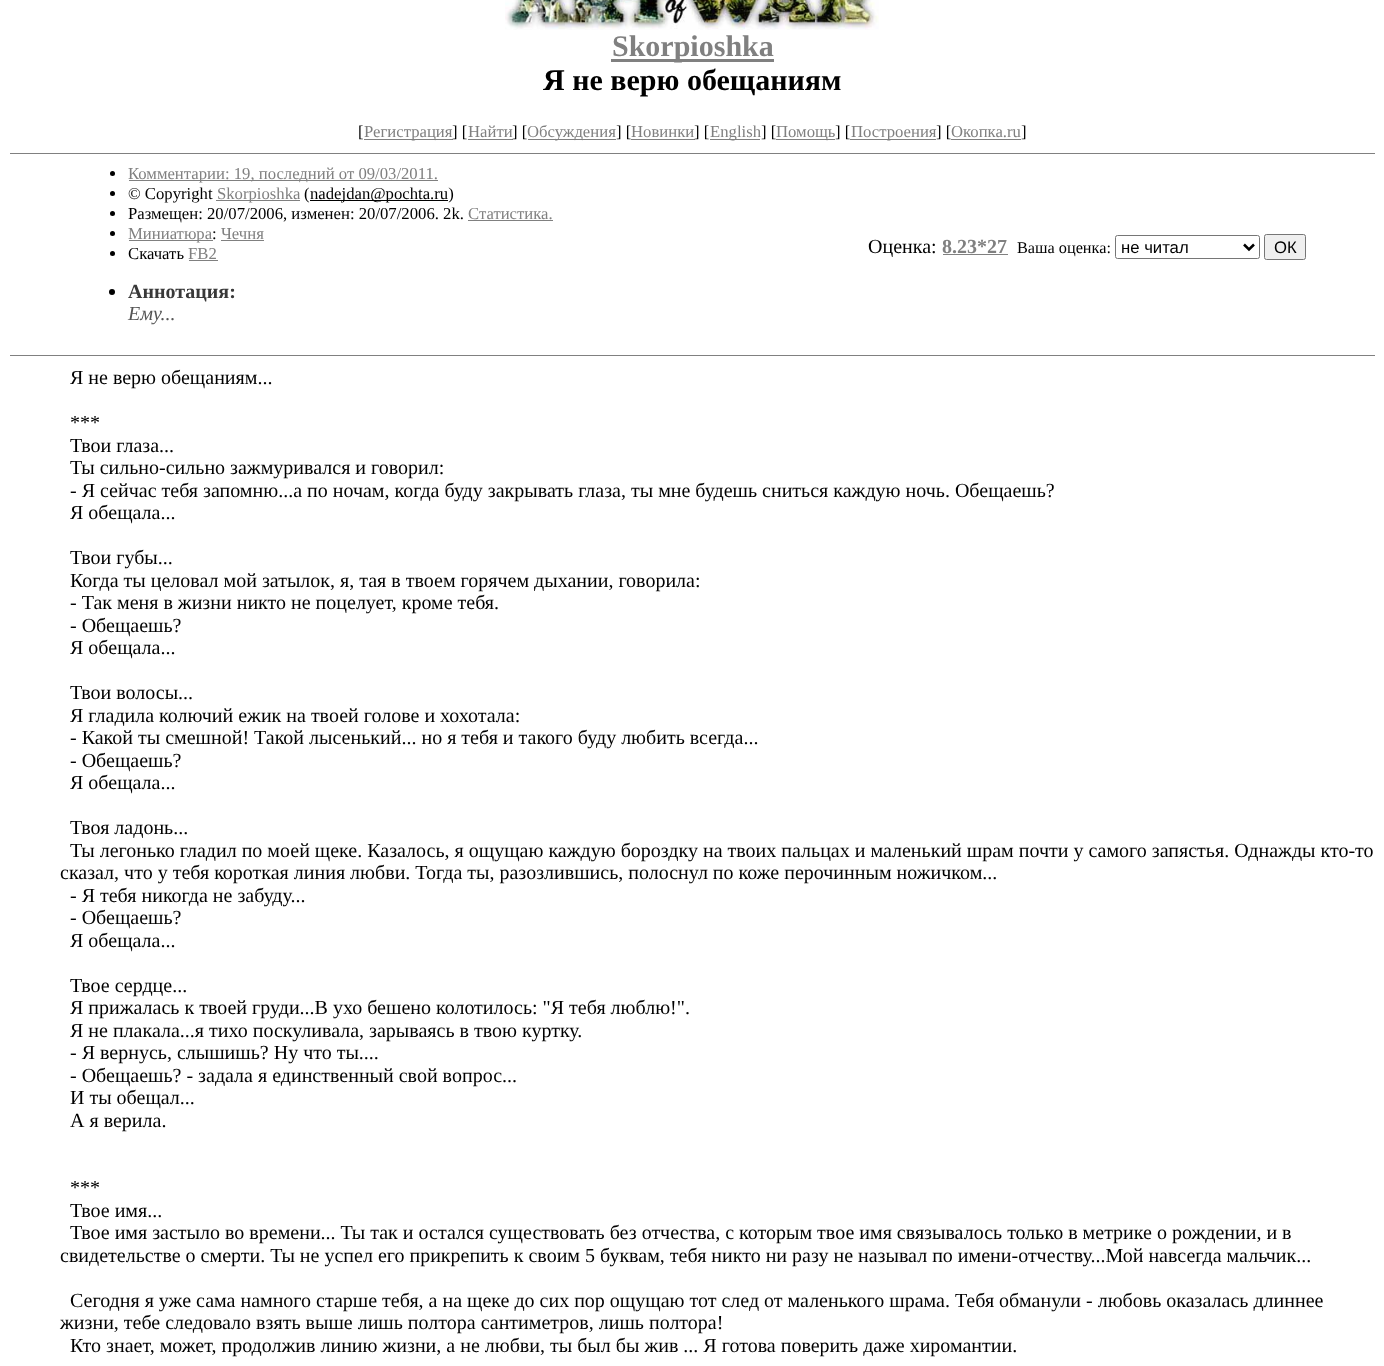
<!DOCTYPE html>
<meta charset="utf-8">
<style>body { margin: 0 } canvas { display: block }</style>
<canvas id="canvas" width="1384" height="1366"></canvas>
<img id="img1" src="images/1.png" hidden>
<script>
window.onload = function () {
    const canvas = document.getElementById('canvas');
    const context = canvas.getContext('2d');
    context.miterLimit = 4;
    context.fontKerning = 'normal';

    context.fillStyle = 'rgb(255, 255, 255)';
    context.fillRect(0, 0, 1384, 1366);
    context.drawImage(document.getElementById('img1'), 505, 0, 374, 30);
    context.fillStyle = 'rgb(128, 128, 128)';
    context.fillRect(611, 59, 163, 3);
    context.fillRect(364, 139, 89, 1);
    context.fillRect(468, 139, 45, 1);
    context.fillRect(528, 139, 88, 1);
    context.fillRect(631, 139, 64, 1);
    context.fillRect(710, 139, 50, 1);
    context.fillRect(776, 139, 59, 1);
    context.fillRect(850, 139, 86, 1);
    context.fillRect(951, 139, 70, 1);
    context.fillRect(10, 153, 1365, 1);
    context.fillStyle = 'rgb(0, 0, 0)';
    context.beginPath();
    context.arc(112.5, 173.5, 2.5, 0, 2 * Math.PI);
    context.fill();
    context.fillStyle = 'rgb(128, 128, 128)';
    context.fillRect(129, 180, 309, 1);
    context.fillStyle = 'rgb(0, 0, 0)';
    context.beginPath();
    context.arc(112.5, 193.5, 2.5, 0, 2 * Math.PI);
    context.fill();
    context.fillStyle = 'rgb(128, 128, 128)';
    context.fillRect(216, 200, 84, 1);
    context.fillStyle = 'rgb(0, 0, 0)';
    context.fillRect(310, 200, 138, 1);
    context.beginPath();
    context.arc(112.5, 213.5, 2.5, 0, 2 * Math.PI);
    context.fill();
    context.fillStyle = 'rgb(128, 128, 128)';
    context.fillRect(468, 220, 85, 1);
    context.fillStyle = 'rgb(0, 0, 0)';
    context.beginPath();
    context.arc(112.5, 233.5, 2.5, 0, 2 * Math.PI);
    context.fill();
    context.fillStyle = 'rgb(128, 128, 128)';
    context.fillRect(129, 240, 84, 1);
    context.fillRect(221, 240, 43, 1);
    context.fillStyle = 'rgb(0, 0, 0)';
    context.beginPath();
    context.arc(112.5, 253.5, 2.5, 0, 2 * Math.PI);
    context.fill();
    context.fillStyle = 'rgb(128, 128, 128)';
    context.fillRect(189, 260, 29, 1);
    context.fillRect(943, 254, 65, 1);
    context.beginPath();
    context.roundRect(1115.5, 235.5, 144, 23, 2);
    context.strokeStyle = 'rgb(118, 118, 118)';
    context.stroke();
    context.beginPath();
    context.moveTo(1244, 244.5);
    context.lineTo(1249, 249.5);
    context.lineTo(1254, 244.5);
    context.strokeStyle = 'rgb(0, 0, 0)';
    context.lineWidth = 2.5;
    context.stroke();
    context.fillStyle = 'rgb(239, 239, 239)';
    context.beginPath();
    context.roundRect(1264.5, 234.5, 41, 25, 2);
    context.fill();
    context.strokeStyle = 'rgb(118, 118, 118)';
    context.lineWidth = 1;
    context.stroke();
    context.fillStyle = 'rgb(0, 0, 0)';
    context.beginPath();
    context.arc(112, 292, 3, 0, 2 * Math.PI);
    context.fill();
    context.fillStyle = 'rgb(128, 128, 128)';
    context.fillRect(10, 355, 1365, 1);
    context.font = 'bold 30px Liberation Serif';
    context.fillText('Skorpioshka', 612, 56);
    context.fillStyle = 'rgb(0, 0, 0)';
    context.fillText('Я не верю обещаниям', 543, 90);
    context.font = '16.7px Liberation Serif';
    context.fillText('[', 358, 137);
    context.fillStyle = 'rgb(128, 128, 128)';
    context.fillText('Регистрация', 364, 137);
    context.fillStyle = 'rgb(0, 0, 0)';
    context.fillText('] [', 452, 137);
    context.fillStyle = 'rgb(128, 128, 128)';
    context.fillText('Найти', 468, 137);
    context.fillStyle = 'rgb(0, 0, 0)';
    context.fillText('] [', 512, 137);
    context.fillStyle = 'rgb(128, 128, 128)';
    context.fillText('Обсуждения', 527, 137);
    context.fillStyle = 'rgb(0, 0, 0)';
    context.fillText('] [', 616, 137);
    context.fillStyle = 'rgb(128, 128, 128)';
    context.fillText('Новинки', 631, 137);
    context.fillStyle = 'rgb(0, 0, 0)';
    context.fillText('] [', 694, 137);
    context.fillStyle = 'rgb(128, 128, 128)';
    context.fillText('English', 710, 137);
    context.fillStyle = 'rgb(0, 0, 0)';
    context.fillText('] [', 761, 137);
    context.fillStyle = 'rgb(128, 128, 128)';
    context.fillText('Помощь', 776, 137);
    context.fillStyle = 'rgb(0, 0, 0)';
    context.fillText('] [', 835, 137);
    context.fillStyle = 'rgb(128, 128, 128)';
    context.fillText('Построения', 851, 137);
    context.fillStyle = 'rgb(0, 0, 0)';
    context.fillText('] [', 936, 137);
    context.fillStyle = 'rgb(128, 128, 128)';
    context.fillText('Окопка.ru', 951, 137);
    context.fillStyle = 'rgb(0, 0, 0)';
    context.fillText(']', 1021, 137);
    context.fillStyle = 'rgb(128, 128, 128)';
    context.fillText('Комментарии: 19, последний от 09/03/2011.', 128, 179);
    context.fillStyle = 'rgb(0, 0, 0)';
    context.fillText('© Copyright', 128, 199);
    context.fillStyle = 'rgb(128, 128, 128)';
    context.fillText('Skorpioshka', 217, 199);
    context.fillStyle = 'rgb(0, 0, 0)';
    context.fillText('(', 304, 199);
    context.fillText('nadejdan@pochta.ru)', 310, 199);
    context.fillText('Размещен: 20/07/2006, изменен: 20/07/2006. 2k.', 128, 219);
    context.fillStyle = 'rgb(128, 128, 128)';
    context.fillText('Статистика.', 468, 219);
    context.fillText('Миниатюра', 128, 239);
    context.fillStyle = 'rgb(0, 0, 0)';
    context.fillText(':', 212, 239);
    context.fillStyle = 'rgb(128, 128, 128)';
    context.fillText('Чечня', 221, 239);
    context.fillStyle = 'rgb(0, 0, 0)';
    context.fillText('Скачать', 128, 259);
    context.fillStyle = 'rgb(128, 128, 128)';
    context.fillText('FB2', 188, 259);
    context.font = '20px Liberation Serif';
    context.fillStyle = 'rgb(0, 0, 0)';
    context.fillText('Оценка:', 868, 253);
    context.font = 'bold 20px Liberation Serif';
    context.fillStyle = 'rgb(128, 128, 128)';
    context.fillText('8.23*27', 942, 253);
    context.font = '16.25px Liberation Serif';
    context.fillStyle = 'rgb(0, 0, 0)';
    context.fillText('Ваша оценка:', 1017, 253);
    context.font = '16.7px Liberation Sans';
    context.fillText('не читал', 1121, 253);
    context.fillText('ОК', 1274, 253);
    context.font = 'bold 20px Liberation Serif';
    context.fillStyle = 'rgb(57, 57, 57)';
    context.fillText('Аннотация:', 128, 298);
    context.font = 'italic 20px Liberation Serif';
    context.fillStyle = 'rgb(85, 85, 85)';
    context.fillText('Ему...', 128, 320);
    context.font = '20px Liberation Serif';
    context.fillStyle = 'rgb(0, 0, 0)';
    context.fillText('Я не верю обещаниям...', 70, 384);
    context.fillText('***', 70, 429);
    context.fillText('Твои глаза...', 70, 452);
    context.fillText('Ты сильно-сильно зажмуривался и говорил:', 70, 474);
    context.fillText('- Я сейчас тебя запомню...а по ночам, когда буду закрывать глаза, ты мне будешь сниться каждую ночь. Обещаешь?', 70, 497);
    context.fillText('Я обещала...', 70, 519);
    context.fillText('Твои губы...', 70, 564);
    context.fillText('Когда ты целовал мой затылок, я, тая в твоем горячем дыхании, говорила:', 70, 587);
    context.fillText('- Так меня в жизни никто не поцелует, кроме тебя.', 70, 609);
    context.fillText('- Обещаешь?', 70, 632);
    context.fillText('Я обещала...', 70, 654);
    context.fillText('Твои волосы...', 70, 699);
    context.fillText('Я гладила колючий ежик на твоей голове и хохотала:', 70, 722);
    context.fillText('- Какой ты смешной! Такой лысенький... но я тебя и такого буду любить всегда...', 70, 744);
    context.fillText('- Обещаешь?', 70, 767);
    context.fillText('Я обещала...', 70, 789);
    context.fillText('Твоя ладонь...', 70, 834);
    context.fillText('Ты легонько гладил по моей щеке. Казалось, я ощущаю каждую бороздку на твоих пальцах и маленький шрам почти у самого запястья. Однажды кто-то', 70, 857);
    context.fillText('сказал, что у тебя короткая линия любви. Тогда ты, разозлившись, полоснул по коже перочинным ножичком...', 60, 879);
    context.fillText('- Я тебя никогда не забуду...', 70, 902);
    context.fillText('- Обещаешь?', 70, 924);
    context.fillText('Я обещала...', 70, 947);
    context.fillText('Твое сердце...', 70, 992);
    context.fillText('Я прижалась к твоей груди...В ухо бешено колотилось: "Я тебя люблю!".', 70, 1014);
    context.fillText('Я не плакала...я тихо поскуливала, зарываясь в твою куртку.', 70, 1037);
    context.fillText('- Я вернусь, слышишь? Ну что ты....', 70, 1059);
    context.fillText('- Обещаешь? - задала я единственный свой вопрос...', 70, 1082);
    context.fillText('И ты обещал...', 70, 1104);
    context.fillText('А я верила.', 70, 1127);
    context.fillText('***', 70, 1194);
    context.fillText('Твое имя...', 70, 1217);
    context.fillText('Твое имя застыло во времени... Ты так и остался существовать без отчества, с которым твое имя связывалось только в метрике о рождении, и в', 70, 1239);
    context.fillText('свидетельстве о смерти. Ты не успел его прикрепить к своим 5 буквам, тебя никто ни разу не называл по имени-отчеству...Мой навсегда мальчик...', 60, 1262);
    context.fillText('Сегодня я уже сама намного старше тебя, а на щеке до сих пор ощущаю тот след от маленького шрама. Тебя обманули - любовь оказалась длиннее', 70, 1307);
    context.fillText('жизни, тебе следовало взять выше лишь полтора сантиметров, лишь полтора!', 60, 1329);
    context.fillText('Кто знает, может, продолжив линию жизни, а не любви, ты был бы жив ... Я готова поверить даже хиромантии.', 70, 1352);
};
</script>
